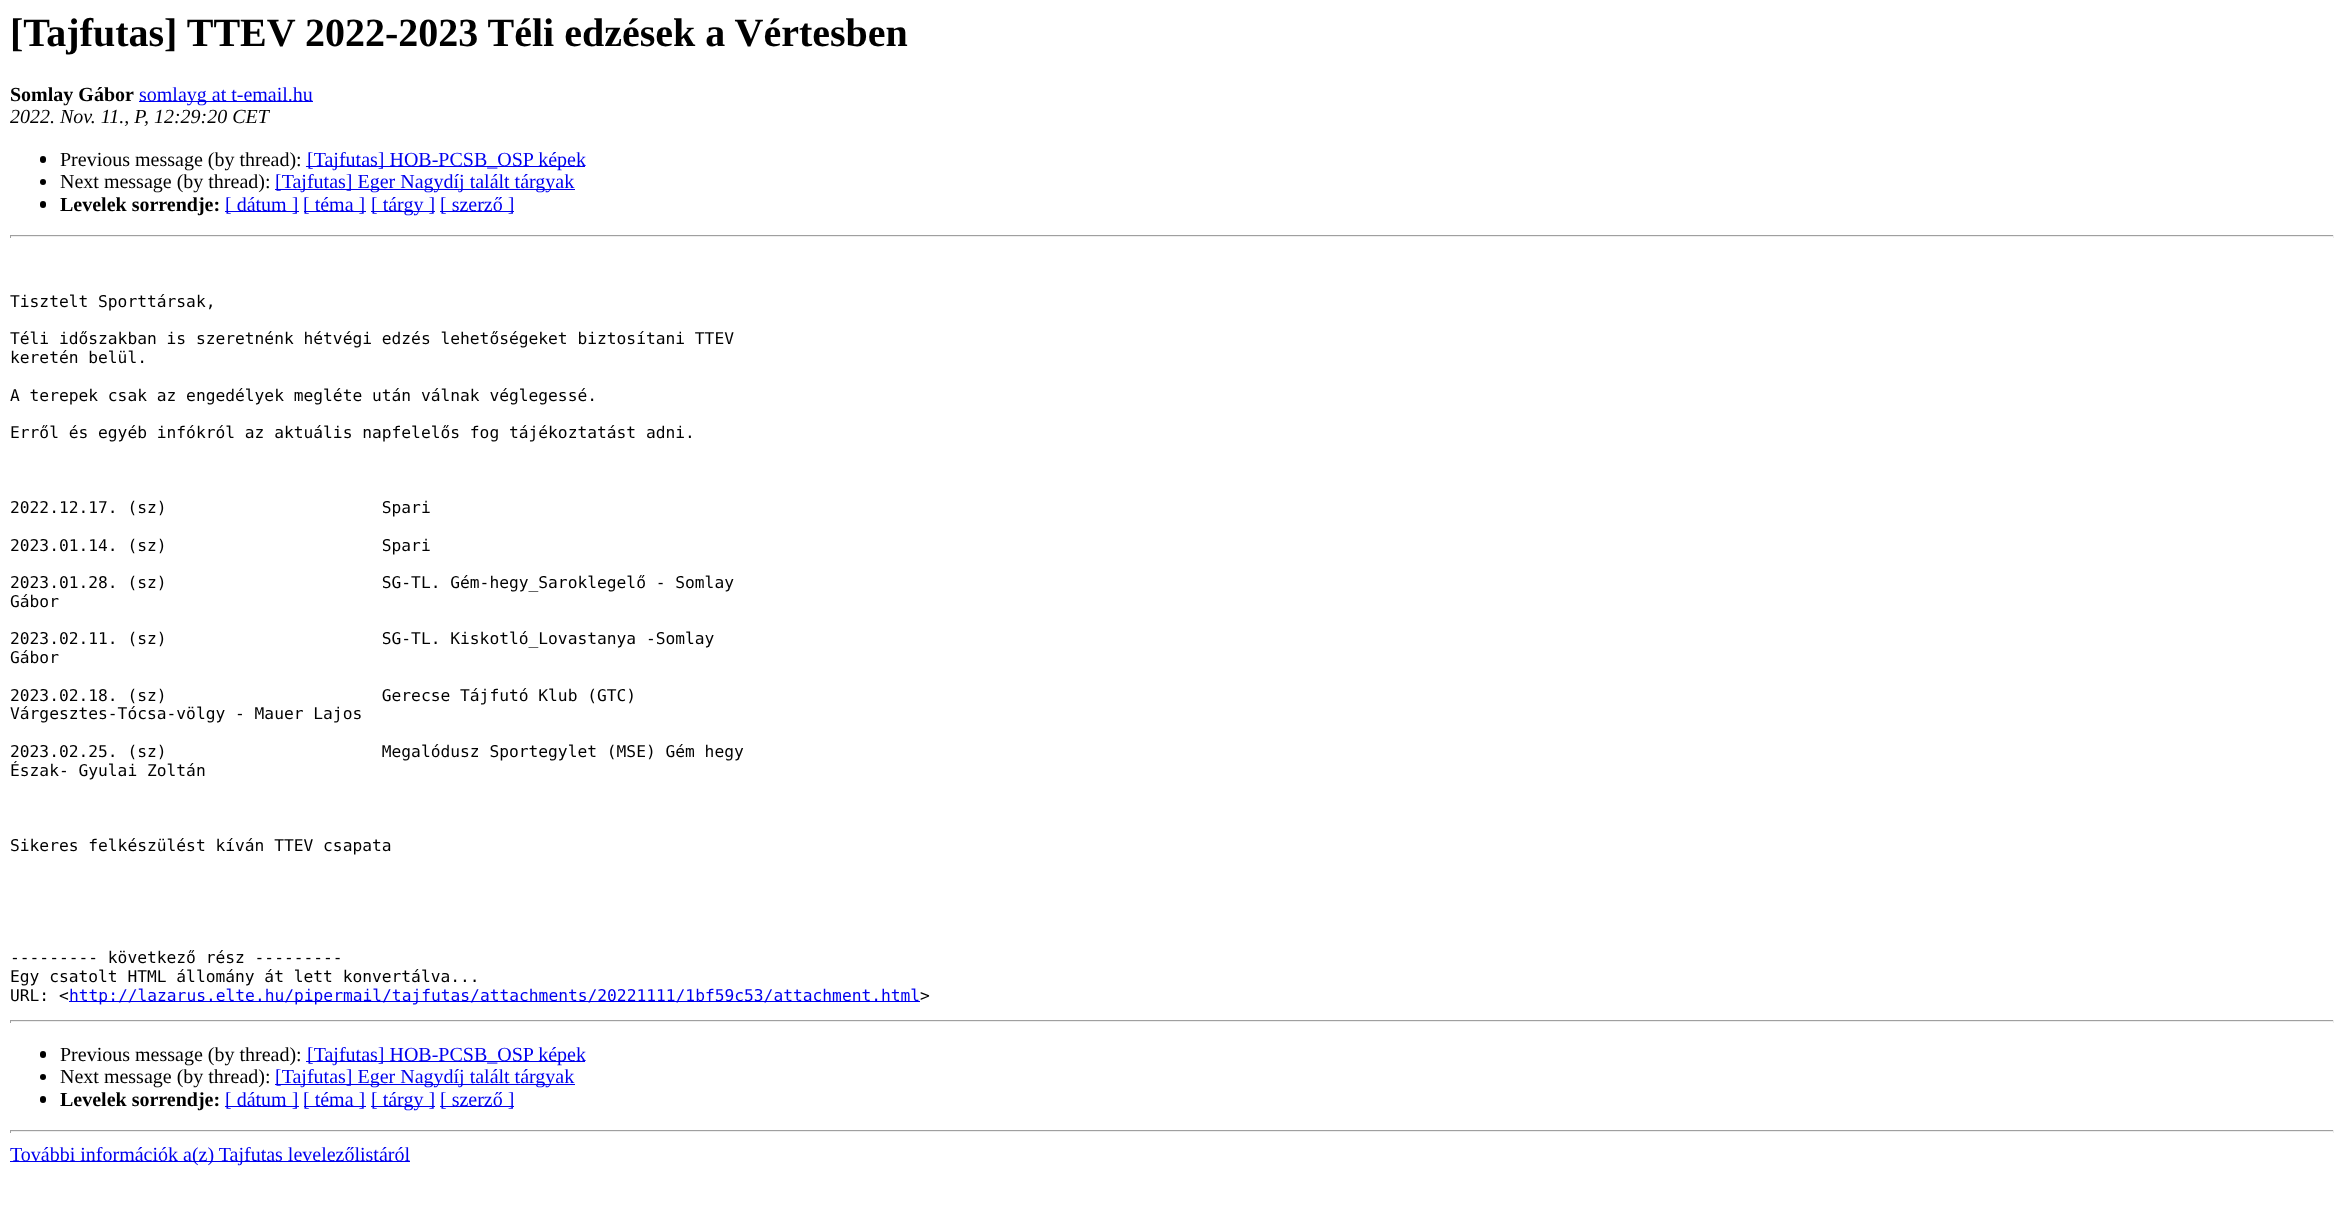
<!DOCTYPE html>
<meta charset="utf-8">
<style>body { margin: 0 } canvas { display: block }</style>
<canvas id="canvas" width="2343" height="1206"></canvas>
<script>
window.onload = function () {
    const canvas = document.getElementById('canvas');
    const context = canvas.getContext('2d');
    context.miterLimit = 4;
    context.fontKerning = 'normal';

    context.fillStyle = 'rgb(255, 255, 255)';
    context.fillRect(0, 0, 2343, 1206);
    context.fillStyle = 'rgb(0, 0, 238)';
    context.fillRect(139, 101, 174, 1);
    context.fillStyle = 'rgb(0, 0, 0)';
    context.beginPath();
    context.roundRect(40, 156, 6, 7, 3);
    context.fill();
    context.fillStyle = 'rgb(0, 0, 238)';
    context.fillRect(306, 166, 279, 1);
    context.fillStyle = 'rgb(0, 0, 0)';
    context.beginPath();
    context.arc(43, 182, 3, 0, 2 * Math.PI);
    context.fill();
    context.fillStyle = 'rgb(0, 0, 238)';
    context.fillRect(275, 189, 300, 1);
    context.fillStyle = 'rgb(0, 0, 0)';
    context.beginPath();
    context.roundRect(40, 201, 6, 7, 3);
    context.fill();
    context.fillStyle = 'rgb(0, 0, 238)';
    context.fillRect(225, 211, 74, 1);
    context.fillRect(304, 211, 62, 1);
    context.fillRect(371, 211, 64, 1);
    context.fillRect(440, 211, 74, 1);
    context.fillStyle = 'rgb(159, 159, 159)';
    context.fillRect(10, 235, 2324, 1);
    context.fillStyle = 'rgb(238, 238, 238)';
    context.fillRect(2333, 235, 1, 3);
    context.fillRect(10, 236, 2324, 1);
    context.fillStyle = 'rgb(159, 159, 159)';
    context.fillRect(10, 235, 1, 3);
    context.fillStyle = 'rgb(0, 0, 238)';
    context.fillRect(69, 1001, 851, 1);
    context.fillStyle = 'rgb(159, 159, 159)';
    context.fillRect(10, 1020, 2324, 1);
    context.fillStyle = 'rgb(238, 238, 238)';
    context.fillRect(2333, 1020, 1, 3);
    context.fillRect(10, 1021, 2324, 1);
    context.fillStyle = 'rgb(159, 159, 159)';
    context.fillRect(10, 1020, 1, 3);
    context.fillStyle = 'rgb(0, 0, 0)';
    context.beginPath();
    context.roundRect(40, 1051, 6, 7, 3);
    context.fill();
    context.fillStyle = 'rgb(0, 0, 238)';
    context.fillRect(306, 1061, 279, 1);
    context.fillStyle = 'rgb(0, 0, 0)';
    context.beginPath();
    context.arc(43, 1077, 3, 0, 2 * Math.PI);
    context.fill();
    context.fillStyle = 'rgb(0, 0, 238)';
    context.fillRect(275, 1084, 300, 1);
    context.fillStyle = 'rgb(0, 0, 0)';
    context.beginPath();
    context.roundRect(40, 1096, 6, 7, 3);
    context.fill();
    context.fillStyle = 'rgb(0, 0, 238)';
    context.fillRect(225, 1106, 74, 1);
    context.fillRect(304, 1106, 62, 1);
    context.fillRect(371, 1106, 64, 1);
    context.fillRect(440, 1106, 74, 1);
    context.fillStyle = 'rgb(159, 159, 159)';
    context.fillRect(10, 1130, 2324, 1);
    context.fillStyle = 'rgb(238, 238, 238)';
    context.fillRect(2333, 1130, 1, 3);
    context.fillRect(10, 1131, 2324, 1);
    context.fillStyle = 'rgb(159, 159, 159)';
    context.fillRect(10, 1130, 1, 3);
    context.fillStyle = 'rgb(0, 0, 238)';
    context.fillRect(10, 1161, 400, 1);
    context.font = 'bold 40px Liberation Serif';
    context.fillStyle = 'rgb(0, 0, 0)';
    context.fillText('[Tajfutas] TTEV 2022-2023 Téli edzések a Vértesben', 10, 46);
    context.font = 'bold 20px Liberation Serif';
    context.fillText('Somlay Gábor', 10, 101);
    context.font = '20px Liberation Serif';
    context.fillStyle = 'rgb(0, 0, 238)';
    context.fillText('somlayg at t-email.hu', 139, 101);
    context.font = 'italic 20px Liberation Serif';
    context.fillStyle = 'rgb(0, 0, 0)';
    context.fillText('2022. Nov. 11., P, 12:29:20 CET', 10, 123);
    context.font = '20px Liberation Serif';
    context.fillText('Previous message (by thread):', 60, 166);
    context.fillStyle = 'rgb(0, 0, 238)';
    context.fillText('[Tajfutas] HOB-PCSB_OSP képek', 307, 166);
    context.fillStyle = 'rgb(0, 0, 0)';
    context.fillText('Next message (by thread):', 60, 188);
    context.fillStyle = 'rgb(0, 0, 238)';
    context.fillText('[Tajfutas] Eger Nagydíj talált tárgyak', 275, 188);
    context.font = 'bold 20px Liberation Serif';
    context.fillStyle = 'rgb(0, 0, 0)';
    context.fillText('Levelek sorrendje:', 60, 211);
    context.font = '20px Liberation Serif';
    context.fillStyle = 'rgb(0, 0, 238)';
    context.fillText('[ dátum ]', 225, 211);
    context.fillText('[ téma ]', 303, 211);
    context.fillText('[ tárgy ]', 371, 211);
    context.fillText('[ szerző ]', 440, 211);
    context.font = '16.25px DejaVu Sans Mono';
    context.fillStyle = 'rgb(0, 0, 0)';
    context.fillText('Tisztelt Sporttársak,', 10, 307);
    context.fillText('Téli időszakban is szeretnénk hétvégi edzés lehetőségeket biztosítani TTEV', 10, 344);
    context.fillText('keretén belül.', 10, 363);
    context.fillText('A terepek csak az engedélyek megléte után válnak véglegessé.', 10, 401);
    context.fillText('Erről és egyéb infókról az aktuális napfelelős fog tájékoztatást adni.', 10, 438);
    context.fillText('2022.12.17. (sz)                      Spari', 10, 513);
    context.fillText('2023.01.14. (sz)                      Spari', 10, 551);
    context.fillText('2023.01.28. (sz)                      SG-TL. Gém-hegy_Saroklegelő - Somlay', 10, 588);
    context.fillText('Gábor', 10, 607);
    context.fillText('2023.02.11. (sz)                      SG-TL. Kiskotló_Lovastanya -Somlay', 10, 644);
    context.fillText('Gábor', 10, 663);
    context.fillText('2023.02.18. (sz)                      Gerecse Tájfutó Klub (GTC)', 10, 701);
    context.fillText('Várgesztes-Tócsa-völgy - Mauer Lajos', 10, 719);
    context.fillText('2023.02.25. (sz)                      Megalódusz Sportegylet (MSE) Gém hegy', 10, 757);
    context.fillText('Észak- Gyulai Zoltán', 10, 776);
    context.fillText('Sikeres felkészülést kíván TTEV csapata', 10, 851);
    context.fillText('--------- következő rész ---------', 10, 963);
    context.fillText('Egy csatolt HTML állomány át lett konvertálva...', 10, 982);
    context.fillText('URL: <', 10, 1001);
    context.fillStyle = 'rgb(0, 0, 238)';
    context.fillText('http://lazarus.elte.hu/pipermail/tajfutas/attachments/20221111/1bf59c53/attachment.html', 69, 1001);
    context.fillStyle = 'rgb(0, 0, 0)';
    context.fillText('>', 920, 1001);
    context.font = '20px Liberation Serif';
    context.fillText('Previous message (by thread):', 60, 1061);
    context.fillStyle = 'rgb(0, 0, 238)';
    context.fillText('[Tajfutas] HOB-PCSB_OSP képek', 307, 1061);
    context.fillStyle = 'rgb(0, 0, 0)';
    context.fillText('Next message (by thread):', 60, 1083);
    context.fillStyle = 'rgb(0, 0, 238)';
    context.fillText('[Tajfutas] Eger Nagydíj talált tárgyak', 275, 1083);
    context.font = 'bold 20px Liberation Serif';
    context.fillStyle = 'rgb(0, 0, 0)';
    context.fillText('Levelek sorrendje:', 60, 1106);
    context.font = '20px Liberation Serif';
    context.fillStyle = 'rgb(0, 0, 238)';
    context.fillText('[ dátum ]', 225, 1106);
    context.fillText('[ téma ]', 303, 1106);
    context.fillText('[ tárgy ]', 371, 1106);
    context.fillText('[ szerző ]', 440, 1106);
    context.fillText('További információk a(z) Tajfutas levelezőlistáról', 10, 1161);
};
</script>
